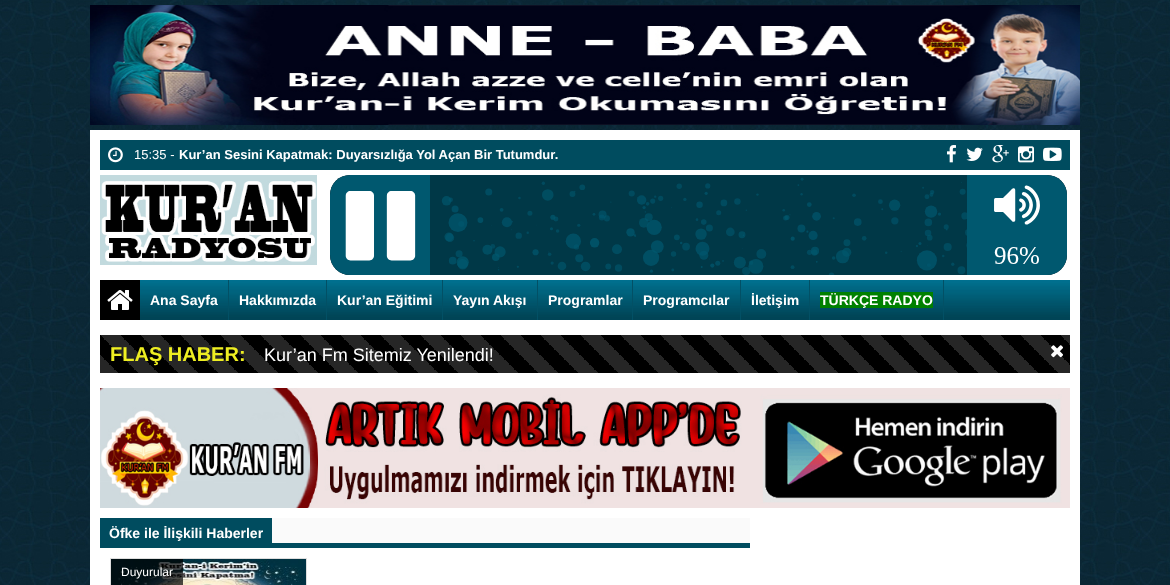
<!DOCTYPE html>
<meta charset="utf-8">
<style>body { margin: 0 } canvas { display: block }</style>
<canvas id="canvas" width="1170" height="585"></canvas>
<img id="img1" src="images/1.png" hidden>
<img id="img2" src="images/2.png" hidden>
<img id="img3" src="images/3.png" hidden>
<img id="img4" src="images/4.png" hidden>
<img id="img5" src="images/5.png" hidden>
<img id="img6" src="images/6.png" hidden>
<img id="img7" src="images/7.png" hidden>
<img id="img8" src="images/8.png" hidden>
<img id="img9" src="images/9.png" hidden>
<img id="img10" src="images/10.png" hidden>
<img id="img11" src="images/11.png" hidden>
<img id="img12" src="images/12.png" hidden>
<img id="img13" src="images/13.png" hidden>
<img id="img14" src="images/14.png" hidden>
<img id="img15" src="images/15.png" hidden>
<img id="img16" src="images/16.png" hidden>
<script>
window.onload = function () {
    const canvas = document.getElementById('canvas');
    const context = canvas.getContext('2d');
    context.miterLimit = 4;
    context.fontKerning = 'normal';

    context.fillStyle = 'rgb(255, 255, 255)';
    context.fillRect(0, 0, 1170, 585);
    context.drawImage(document.getElementById('img1'), 0, 0, 1170, 585);
    context.drawImage(document.getElementById('img2'), 90, 5, 990, 120);
    context.fillRect(90, 130, 990, 455);
    context.fillStyle = 'rgb(0, 76, 95)';
    context.fillRect(100, 140, 970, 30);
    context.drawImage(document.getElementById('img3'), 108, 147, 15, 16);
    context.drawImage(document.getElementById('img4'), 947, 145, 9, 18);
    context.drawImage(document.getElementById('img5'), 966, 147, 17, 14);
    context.drawImage(document.getElementById('img6'), 992, 145, 17, 18);
    context.drawImage(document.getElementById('img7'), 1018, 146, 16, 17);
    context.drawImage(document.getElementById('img8'), 1043, 147, 19, 14);
    context.drawImage(document.getElementById('img9'), 100, 175, 217, 90);
    context.drawImage(document.getElementById('img10'), 330, 175, 737, 100);
    context.fillStyle = 'rgb(0, 0, 0)';
    context.fillRect(100, 280, 40, 40);
    context.drawImage(document.getElementById('img11'), 107, 290, 26, 20);
    context.drawImage(document.getElementById('img12'), 140, 280, 930, 40);
    context.fillStyle = 'rgb(2, 80, 101)';
    context.fillRect(228, 280, 1, 40);
    context.fillRect(326, 280, 1, 40);
    context.fillRect(442, 280, 1, 40);
    context.fillRect(537, 280, 1, 40);
    context.fillRect(632, 280, 1, 40);
    context.fillRect(740, 280, 1, 40);
    context.fillRect(809, 280, 1, 40);
    context.fillRect(943, 280, 1, 40);
    context.fillStyle = 'rgb(0, 128, 0)';
    context.fillRect(820, 292, 113, 16);
    context.fillStyle = 'rgb(0, 0, 0)';
    context.fillRect(100, 335, 970, 38);
    context.drawImage(document.getElementById('img13'), 100, 335, 970, 38);
    context.drawImage(document.getElementById('img14'), 1051, 345, 12, 13);
    context.drawImage(document.getElementById('img15'), 100, 388, 970, 120);
    context.fillStyle = 'rgb(250, 250, 250)';
    context.fillRect(272, 518, 478, 25);
    context.fillStyle = 'rgb(0, 76, 95)';
    context.fillRect(272, 543, 478, 5);
    context.fillRect(100, 518, 172, 30);
    context.strokeStyle = 'rgb(222, 222, 222)';
    context.strokeRect(110.5, 558.5, 196, 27);
    context.drawImage(document.getElementById('img16'), 111, 559, 195, 26);
    context.fillStyle = 'rgba(0, 0, 0, 0.7)';
    context.fillRect(111, 559, 72, 26);
    context.font = '13px Liberation Sans';
    context.fillStyle = 'rgb(255, 255, 255)';
    context.fillText('15:35 -', 134, 159);
    context.font = 'bold 13px Liberation Sans';
    context.fillText('Kur’an Sesini Kapatmak: Duyarsızlığa Yol Açan Bir Tutumdur.', 179, 159);
    context.font = 'bold 14px Liberation Sans';
    context.fillText('Ana Sayfa', 150, 305);
    context.fillText('Hakkımızda', 239, 305);
    context.fillText('Kur’an Eğitimi', 337, 305);
    context.fillText('Yayın Akışı', 453, 305);
    context.fillText('Programlar', 548, 305);
    context.fillText('Programcılar', 643, 305);
    context.fillText('İletişim', 751, 305);
    context.fillText('TÜRKÇE RADYO', 820, 305);
    context.font = 'bold 20px Liberation Sans';
    context.fillStyle = 'rgb(238, 238, 34)';
    context.fillText('FLAŞ HABER:', 110, 361);
    context.font = '18px Liberation Sans';
    context.fillStyle = 'rgb(255, 255, 255)';
    context.fillText('Kur’an Fm Sitemiz Yenilendi!', 264, 361);
    context.font = 'bold 14px Liberation Sans';
    context.fillText('Öfke ile İlişkili Haberler', 109, 538);
    context.font = '12px Liberation Sans';
    context.fillText('Duyurular', 121, 576);
};
</script>
